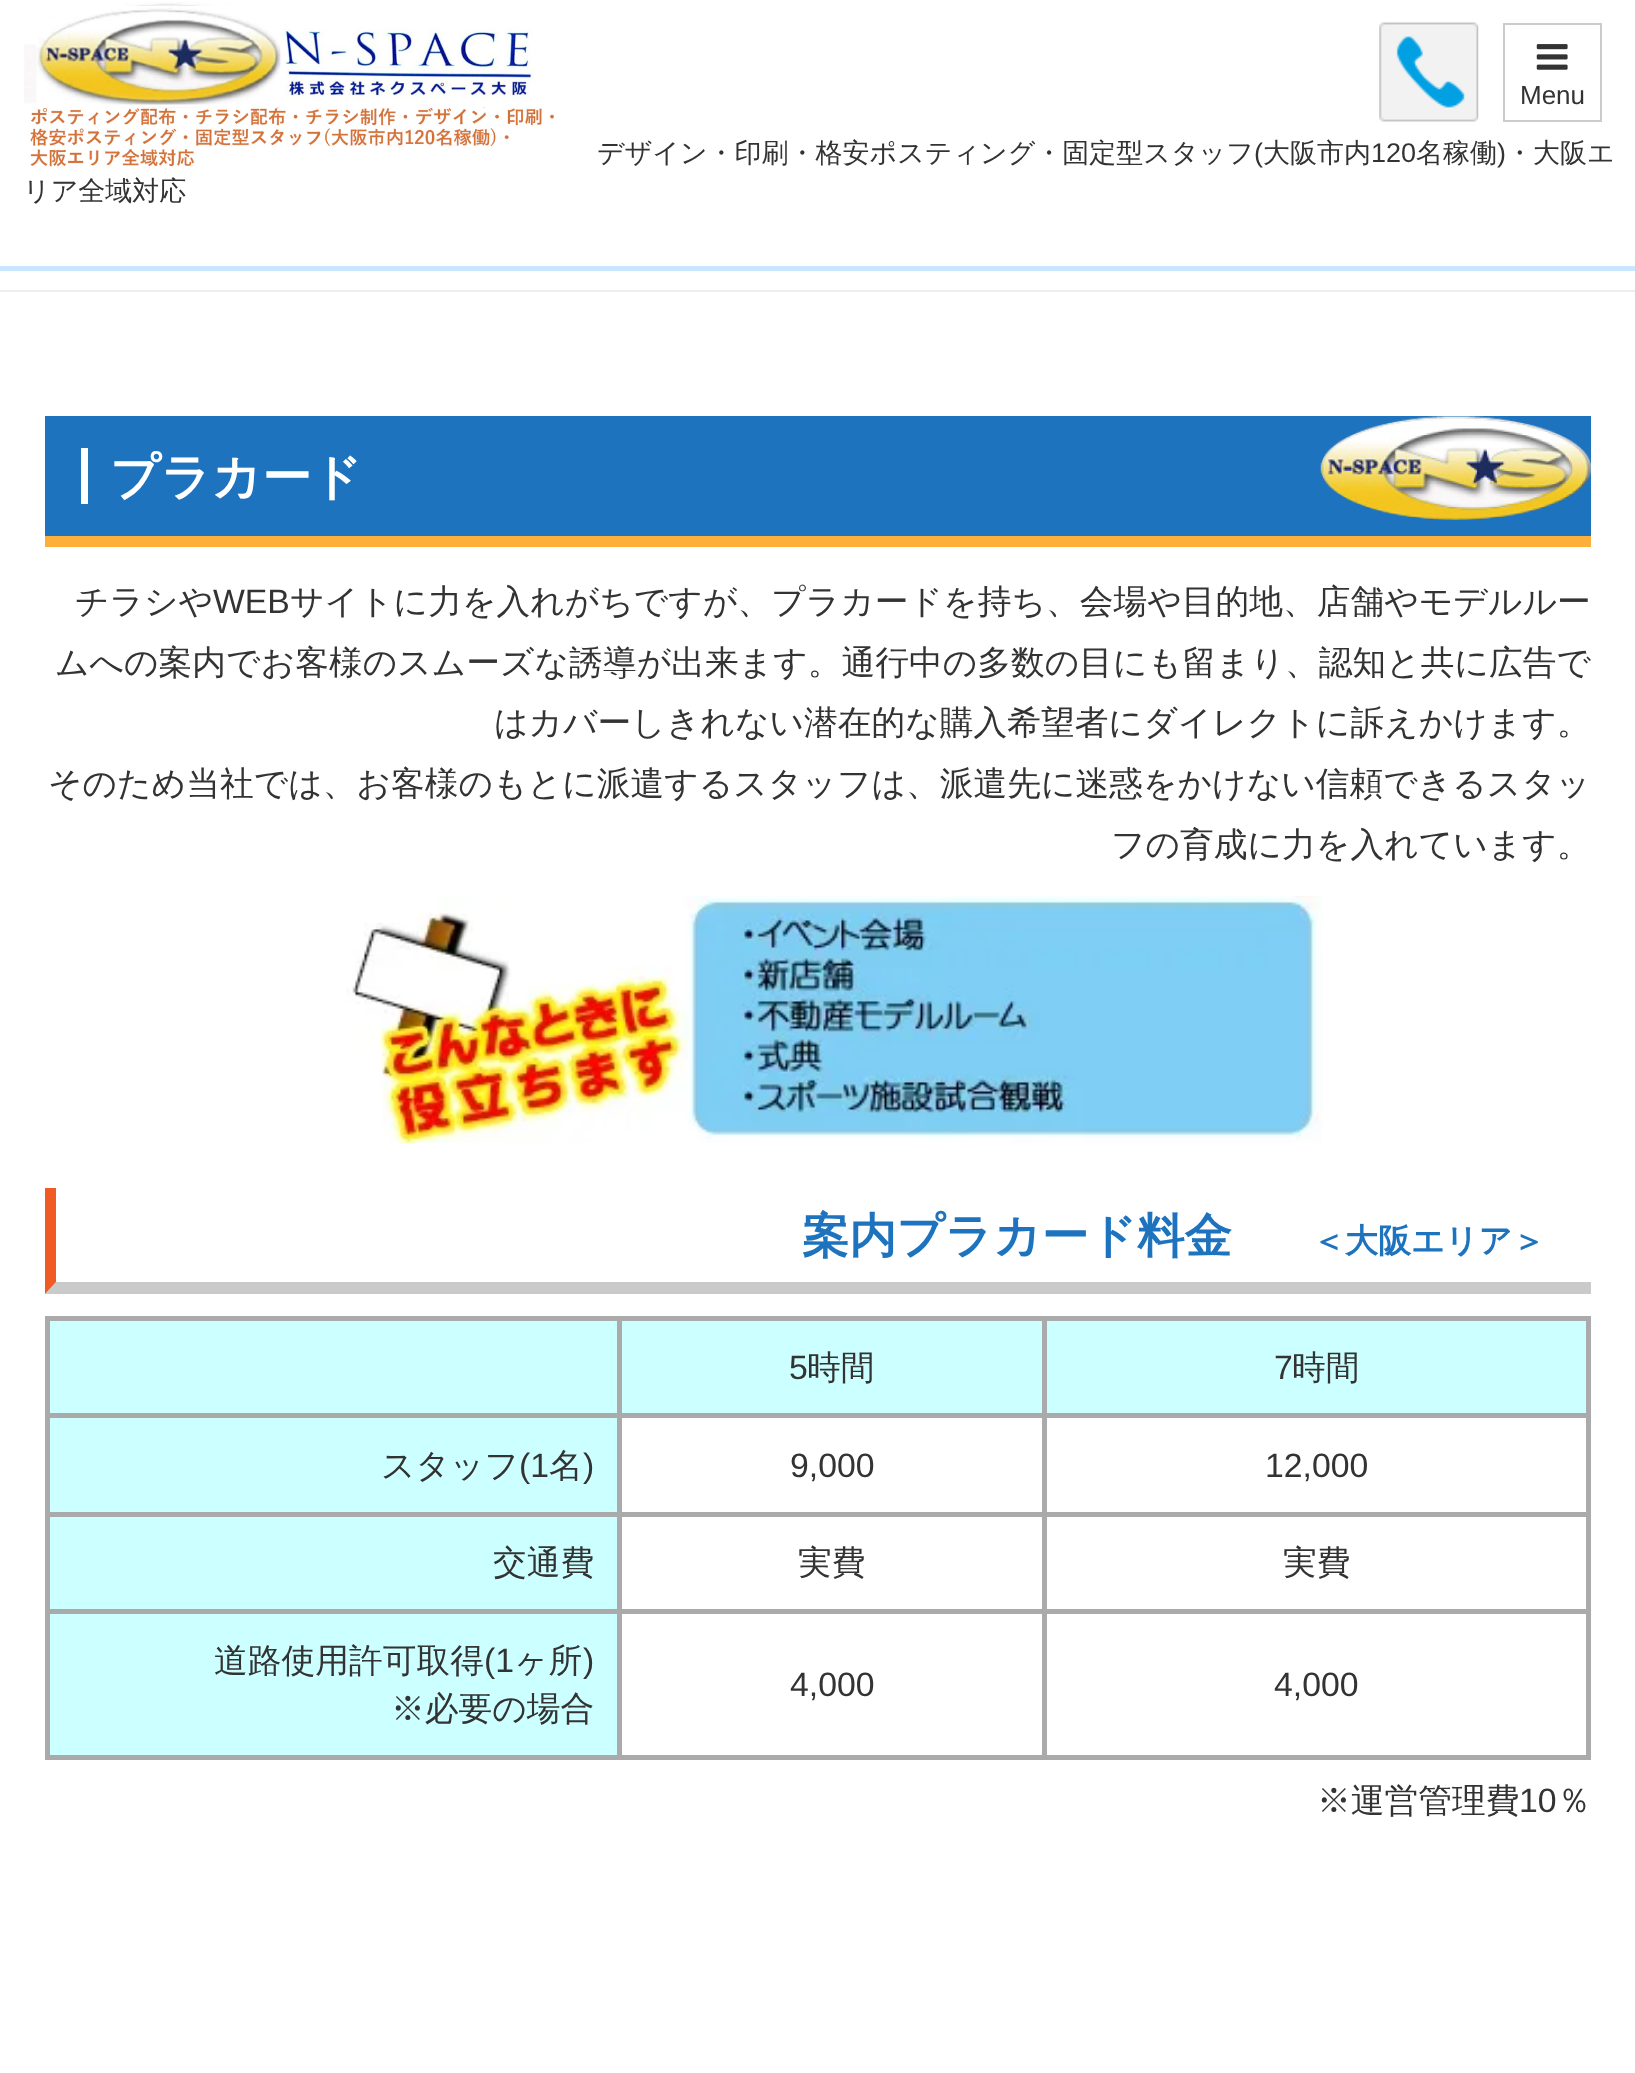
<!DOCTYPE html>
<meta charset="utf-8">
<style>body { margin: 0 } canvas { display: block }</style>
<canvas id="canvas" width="1635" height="2073"></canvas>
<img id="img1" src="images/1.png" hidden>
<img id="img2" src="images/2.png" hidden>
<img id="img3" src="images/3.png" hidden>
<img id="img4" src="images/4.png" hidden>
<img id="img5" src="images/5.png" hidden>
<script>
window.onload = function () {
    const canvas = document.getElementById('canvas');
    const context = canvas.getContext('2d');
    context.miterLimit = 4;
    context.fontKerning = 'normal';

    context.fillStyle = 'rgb(255, 255, 255)';
    context.fillRect(0, 0, 1635, 2073);
    context.fillStyle = 'rgb(200, 230, 255)';
    context.fillRect(0, 266, 1635, 5);
    context.drawImage(document.getElementById('img1'), 23, 2, 562, 165);
    context.strokeStyle = 'rgb(204, 204, 204)';
    context.lineWidth = 2;
    context.strokeRect(1504, 24, 97, 97);
    context.drawImage(document.getElementById('img2'), 1536, 44, 32, 26);
    context.drawImage(document.getElementById('img3'), 1379, 22, 100, 100);
    context.fillStyle = 'rgb(238, 238, 238)';
    context.fillRect(0, 290, 1635, 2);
    context.fillStyle = 'rgb(30, 115, 190)';
    context.fillRect(45, 416, 1546, 120);
    context.drawImage(document.getElementById('img4'), 1320, 416, 271, 104);
    context.fillStyle = 'rgb(252, 175, 59)';
    context.fillRect(45, 536, 1546, 11);
    context.fillStyle = 'rgb(255, 255, 255)';
    context.fillRect(81, 448, 7, 56);
    context.drawImage(document.getElementById('img5'), 346, 896, 976, 248);
    context.fillStyle = 'rgb(202, 202, 202)';
    context.beginPath();
    context.moveTo(1591, 1294);
    context.lineTo(45, 1294);
    context.lineTo(56, 1282);
    context.lineTo(1591, 1282);
    context.closePath();
    context.fill();
    context.fillStyle = 'rgb(240, 90, 37)';
    context.beginPath();
    context.moveTo(45, 1294);
    context.lineTo(45, 1188);
    context.lineTo(56, 1188);
    context.lineTo(56, 1282);
    context.closePath();
    context.fill();
    context.fillStyle = 'rgb(204, 255, 255)';
    context.fillRect(50, 1321, 567, 92);
    context.fillStyle = 'rgb(170, 170, 170)';
    context.fillRect(1042, 1316, 549, 5);
    context.fillRect(1042, 1413, 549, 5);
    context.fillRect(1042, 1512, 549, 5);
    context.fillRect(1042, 1609, 549, 5);
    context.fillRect(1586, 1609, 5, 151);
    context.fillRect(1042, 1755, 549, 5);
    context.fillRect(1042, 1609, 5, 151);
    context.fillRect(617, 1609, 429, 5);
    context.fillRect(1042, 1512, 5, 101);
    context.fillRect(617, 1512, 429, 5);
    context.fillRect(1042, 1413, 5, 104);
    context.fillRect(617, 1413, 429, 5);
    context.fillRect(1042, 1316, 5, 102);
    context.fillRect(617, 1316, 429, 5);
    context.fillRect(617, 1755, 429, 5);
    context.fillRect(617, 1609, 5, 151);
    context.fillRect(45, 1609, 576, 5);
    context.fillRect(617, 1512, 5, 101);
    context.fillRect(45, 1512, 576, 5);
    context.fillRect(617, 1413, 5, 104);
    context.fillRect(45, 1413, 576, 5);
    context.fillRect(617, 1316, 5, 102);
    context.fillRect(45, 1316, 576, 5);
    context.fillRect(45, 1755, 576, 5);
    context.fillRect(45, 1609, 5, 151);
    context.fillRect(45, 1512, 5, 101);
    context.fillRect(45, 1413, 5, 104);
    context.fillRect(45, 1316, 5, 102);
    context.fillStyle = 'rgb(204, 255, 255)';
    context.fillRect(622, 1321, 420, 92);
    context.fillRect(1047, 1321, 539, 92);
    context.fillStyle = 'rgb(170, 170, 170)';
    context.fillRect(1586, 1512, 5, 101);
    context.fillRect(1586, 1413, 5, 104);
    context.fillRect(1586, 1316, 5, 102);
    context.fillStyle = 'rgb(204, 255, 255)';
    context.fillRect(50, 1418, 567, 94);
    context.fillRect(50, 1517, 567, 92);
    context.fillRect(50, 1614, 567, 141);
    context.font = '26px Liberation Sans';
    context.fillStyle = 'rgb(51, 51, 51)';
    context.fillText('Menu', 1520, 104);
    context.font = '500 27px WenQuanYi Zen Hei';
    context.fillText('デザイン・印刷・格安ポスティング・固定型スタッフ', 597, 162);
    context.font = '27px Liberation Sans';
    context.fillText('(', 1254, 162);
    context.font = '500 27px WenQuanYi Zen Hei';
    context.fillText('大阪市内', 1263, 162);
    context.font = '27px Liberation Sans';
    context.fillText('120', 1371, 162);
    context.font = '500 27px WenQuanYi Zen Hei';
    context.fillText('名稼働', 1416, 162);
    context.font = '27px Liberation Sans';
    context.fillText(')', 1497, 162);
    context.font = '500 27px WenQuanYi Zen Hei';
    context.fillText('・大阪エ', 1506, 162);
    context.fillText('リア全域対応', 23, 200);
    context.font = 'bold 49.5px WenQuanYi Zen Hei';
    context.fillStyle = 'rgb(255, 255, 255)';
    context.fillText('プラカード', 110, 494);
    context.font = '500 33.75px WenQuanYi Zen Hei';
    context.fillStyle = 'rgb(51, 51, 51)';
    context.fillText('チラシや', 75, 613);
    context.font = '33.75px Liberation Sans';
    context.fillText('WEB', 213, 613);
    context.font = '500 33.75px WenQuanYi Zen Hei';
    context.fillText('サイトに力を入れがちですが、プラカードを持ち、会場や目的地、店舗やモデルルー', 290, 613);
    context.fillText('ムへの案内でお客様のスムーズな誘導が出来ます。通行中の多数の目にも留まり、認知と共に広告で', 55, 674);
    context.fillText('はカバーしきれない潜在的な購入希望者にダイレクトに訴えかけます。', 494, 734);
    context.fillText('そのため当社では、お客様のもとに派遣するスタッフは、派遣先に迷惑をかけない信頼できるスタッ', 48, 795);
    context.fillText('フの育成に力を入れています。', 1111, 856);
    context.font = 'bold 47.25px WenQuanYi Zen Hei';
    context.fillStyle = 'rgb(30, 115, 190)';
    context.fillText('案内プラカード料金', 802, 1252);
    context.font = 'bold 33px WenQuanYi Zen Hei';
    context.fillText('＜大阪エリア＞', 1312, 1252);
    context.font = '33.75px Liberation Sans';
    context.fillStyle = 'rgb(51, 51, 51)';
    context.fillText('5', 789, 1379);
    context.font = '500 33.75px WenQuanYi Zen Hei';
    context.fillText('時間', 807, 1379);
    context.font = '33.75px Liberation Sans';
    context.fillText('7', 1274, 1379);
    context.font = '500 33.75px WenQuanYi Zen Hei';
    context.fillText('時間', 1292, 1379);
    context.fillText('スタッフ', 381, 1477);
    context.font = '33.75px Liberation Sans';
    context.fillText('(1', 519, 1477);
    context.font = '500 33.75px WenQuanYi Zen Hei';
    context.fillText('名', 549, 1477);
    context.font = '33.75px Liberation Sans';
    context.fillText(')', 583, 1477);
    context.fillText('9,000', 790, 1477);
    context.fillText('12,000', 1265, 1477);
    context.font = '500 33.75px WenQuanYi Zen Hei';
    context.fillText('交通費', 493, 1574);
    context.fillText('実費', 798, 1574);
    context.fillText('実費', 1283, 1574);
    context.fillText('道路使用許可取得', 214, 1672);
    context.font = '33.75px Liberation Sans';
    context.fillText('(1', 484, 1672);
    context.font = '500 33.75px WenQuanYi Zen Hei';
    context.fillText('ヶ所', 514, 1672);
    context.font = '33.75px Liberation Sans';
    context.fillText(')', 583, 1672);
    context.font = '500 33.75px WenQuanYi Zen Hei';
    context.fillText('※必要の場合', 391, 1720);
    context.font = '33.75px Liberation Sans';
    context.fillText('4,000', 790, 1696);
    context.fillText('4,000', 1274, 1696);
    context.font = '500 33.75px WenQuanYi Zen Hei';
    context.fillText('※運営管理費', 1317, 1812);
    context.font = '33.75px Liberation Sans';
    context.fillText('10', 1519, 1812);
    context.font = '500 33.75px WenQuanYi Zen Hei';
    context.fillText('％', 1557, 1812);
};
</script>
